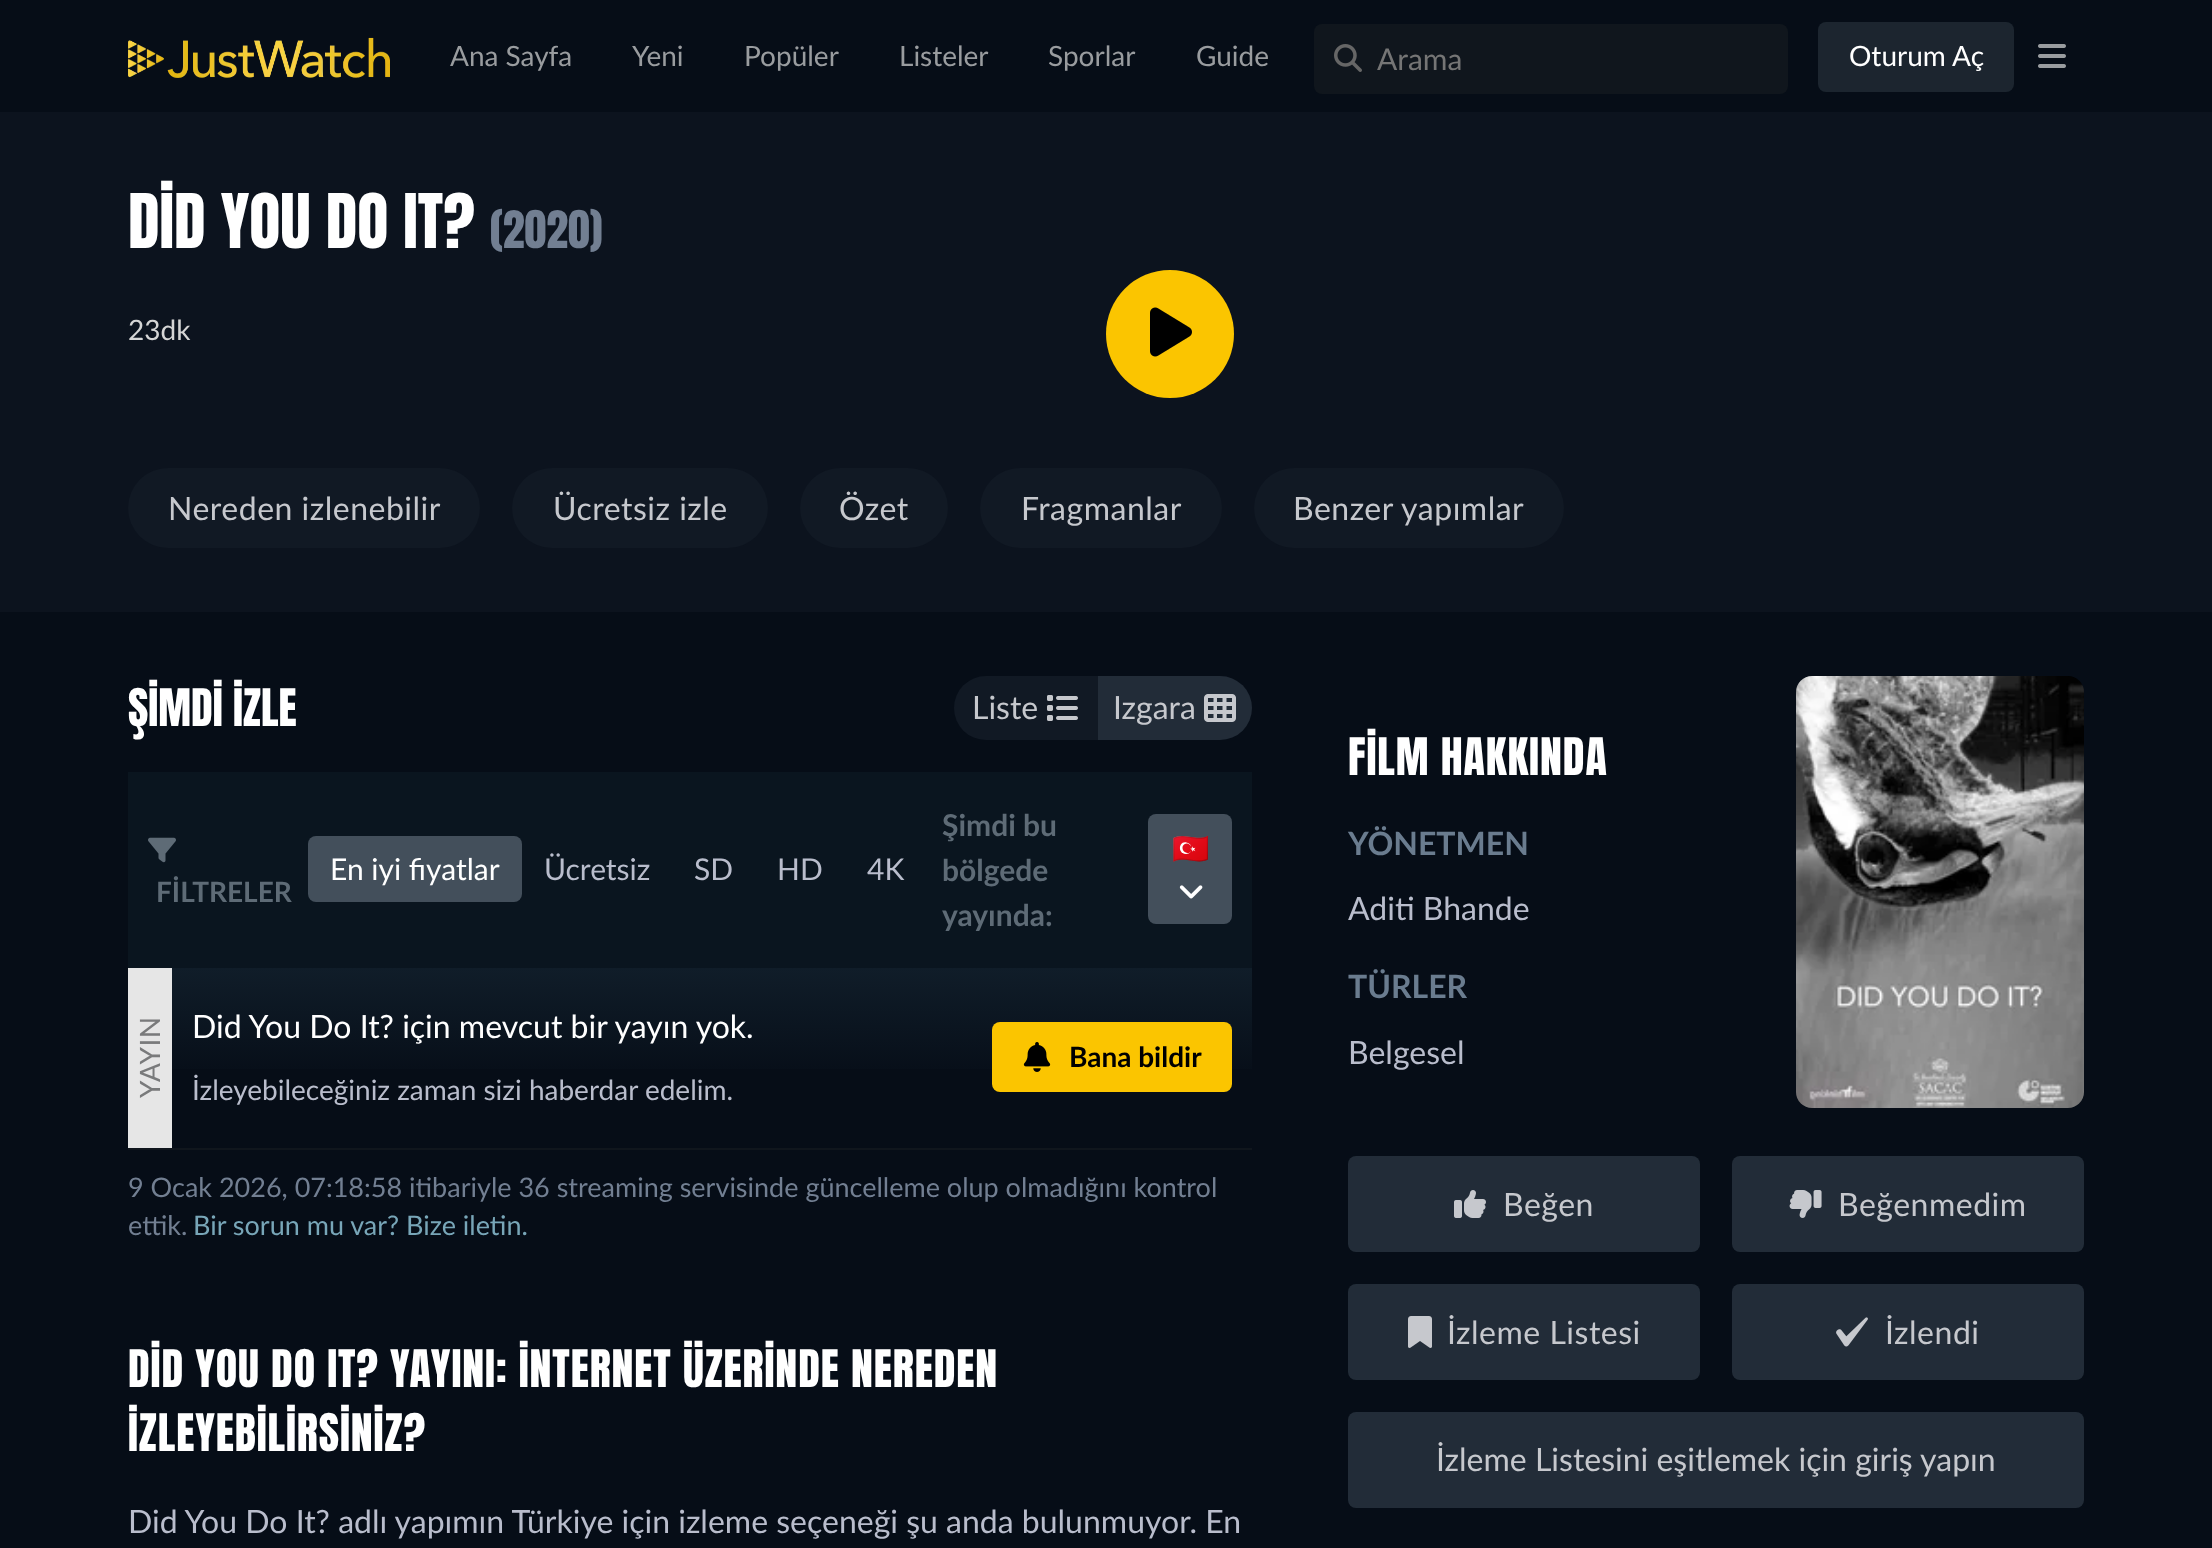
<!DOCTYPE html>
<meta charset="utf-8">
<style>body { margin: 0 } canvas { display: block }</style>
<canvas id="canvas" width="2212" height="1548"></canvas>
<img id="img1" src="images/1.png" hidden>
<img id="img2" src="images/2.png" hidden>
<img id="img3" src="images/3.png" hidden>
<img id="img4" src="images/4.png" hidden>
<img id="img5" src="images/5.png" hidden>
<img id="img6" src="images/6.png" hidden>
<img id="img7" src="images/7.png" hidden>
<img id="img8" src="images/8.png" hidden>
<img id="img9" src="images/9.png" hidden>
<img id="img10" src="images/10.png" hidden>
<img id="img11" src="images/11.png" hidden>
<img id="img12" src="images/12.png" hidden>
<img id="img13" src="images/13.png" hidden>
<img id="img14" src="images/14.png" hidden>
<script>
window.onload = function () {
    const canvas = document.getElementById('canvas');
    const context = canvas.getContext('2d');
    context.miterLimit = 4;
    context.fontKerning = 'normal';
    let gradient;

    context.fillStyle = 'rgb(6, 13, 23)';
    context.fillRect(0, 0, 2212, 1548);
    context.drawImage(document.getElementById('img1'), 128, 37, 262, 41);
    context.fillStyle = 'rgb(16, 22, 29)';
    context.beginPath();
    context.roundRect(1314, 24, 474, 70, 8);
    context.fill();
    context.drawImage(document.getElementById('img2'), 1334, 44, 28, 28);
    context.fillStyle = 'rgb(28, 37, 47)';
    context.beginPath();
    context.roundRect(1818, 22, 196, 70, 8);
    context.fill();
    context.drawImage(document.getElementById('img3'), 2038, 44, 28, 24);
    context.fillStyle = 'rgb(12, 19, 30)';
    context.fillRect(0, 112, 2212, 500);
    context.fillStyle = 'rgb(17, 25, 36)';
    context.beginPath();
    context.roundRect(128, 468, 352, 80, 40);
    context.fill();
    context.beginPath();
    context.roundRect(512, 468, 256, 80, 40);
    context.fill();
    context.beginPath();
    context.roundRect(800, 468, 148, 80, 40);
    context.fill();
    context.beginPath();
    context.roundRect(980, 468, 242, 80, 40);
    context.fill();
    context.beginPath();
    context.roundRect(1254, 468, 310, 80, 40);
    context.fill();
    context.fillStyle = 'rgb(251, 197, 0)';
    context.beginPath();
    context.arc(1170, 334, 64, 0, 2 * Math.PI);
    context.fill();
    context.drawImage(document.getElementById('img4'), 1150, 307, 42, 50);
    context.fillStyle = 'rgb(17, 25, 36)';
    context.beginPath();
    context.roundRect(954, 676, 144, 64, [32, 0, 0, 32]);
    context.fill();
    context.drawImage(document.getElementById('img5'), 1047, 695, 31, 26);
    context.fillStyle = 'rgb(34, 44, 56)';
    context.beginPath();
    context.roundRect(1098, 676, 154, 64, [0, 32, 32, 0]);
    context.fill();
    context.drawImage(document.getElementById('img6'), 1204, 694, 32, 28);
    context.fillStyle = 'rgb(10, 21, 31)';
    context.fillRect(128, 772, 1124, 196);
    context.fillStyle = 'rgb(67, 79, 91)';
    context.beginPath();
    context.roundRect(308, 836, 214, 66, 8);
    context.fill();
    context.beginPath();
    context.roundRect(1148, 814, 84, 110, 8);
    context.fill();
    context.drawImage(document.getElementById('img7'), 1179, 885, 24, 14);
    context.drawImage(document.getElementById('img8'), 148, 837, 28, 26);
    context.fillStyle = 'rgb(16, 22, 29)';
    context.fillRect(128, 1148, 1124, 2);
    context.fillStyle = 'rgb(230, 230, 230)';
    context.fillRect(128, 968, 44, 180);
    gradient = context.createLinearGradient(712, 968, 712, 1148);
    gradient.addColorStop(0, 'rgb(16, 29, 41)');
    gradient.addColorStop(0.65, 'rgb(6, 13, 23)');
    context.fillStyle = gradient;
    context.fillRect(172, 968, 1080, 101);
    context.fillStyle = 'rgb(251, 197, 0)';
    context.beginPath();
    context.roundRect(992, 1022, 240, 70, 8);
    context.fill();
    context.drawImage(document.getElementById('img9'), 1023, 1042, 28, 30);
    context.drawImage(document.getElementById('img10'), 1796, 676, 288, 432);
    context.fillStyle = 'rgb(34, 44, 56)';
    context.beginPath();
    context.roundRect(1348, 1156, 352, 96, 8);
    context.fill();
    context.drawImage(document.getElementById('img11'), 1454, 1190, 32, 28);
    context.beginPath();
    context.roundRect(1732, 1156, 352, 96, 8);
    context.fill();
    context.drawImage(document.getElementById('img12'), 1789, 1190, 33, 28);
    context.beginPath();
    context.roundRect(1348, 1284, 352, 96, 8);
    context.fill();
    context.drawImage(document.getElementById('img13'), 1408, 1316, 24, 32);
    context.beginPath();
    context.roundRect(1732, 1284, 352, 96, 8);
    context.fill();
    context.drawImage(document.getElementById('img14'), 1836, 1317, 32, 30);
    context.beginPath();
    context.roundRect(1348, 1412, 736, 96, 8);
    context.fill();
    context.font = '28px Lato';
    context.fillStyle = 'rgb(153, 156, 159)';
    context.fillText('Ana Sayfa', 450, 66);
    context.fillText('Yeni', 632, 66);
    context.fillText('Popüler', 744, 66);
    context.fillText('Listeler', 899, 66);
    context.fillText('Sporlar', 1048, 66);
    context.fillText('Guide', 1196, 66);
    context.font = '30px Lato';
    context.fillStyle = 'rgb(117, 117, 117)';
    context.fillText('Arama', 1377, 70);
    context.font = '28px Lato';
    context.fillStyle = 'rgb(255, 255, 255)';
    context.fillText('Oturum Aç', 1849, 66);
    context.font = '64px Anton';
    context.fillText('DİD YOU DO IT?', 128, 248);
    context.font = '44px Anton';
    context.fillStyle = 'rgb(114, 127, 146)';
    context.fillText('(2020)', 490, 248);
    context.font = '28px Lato';
    context.fillStyle = 'rgb(213, 213, 213)';
    context.fillText('23dk', 128, 340);
    context.letterSpacing = '0.5px';
    context.font = '32px Lato';
    context.fillStyle = 'rgb(198, 200, 205)';
    context.fillText('Nereden izlenebilir', 168, 520);
    context.fillText('Ücretsiz izle', 553, 520);
    context.fillText('Özet', 839, 520);
    context.fillText('Fragmanlar', 1021, 520);
    context.fillText('Benzer yapımlar', 1293, 520);
    context.letterSpacing = '0px';
    context.font = '44px Anton';
    context.fillStyle = 'rgb(255, 255, 255)';
    context.fillText('ŞİMDİ İZLE', 128, 726);
    context.font = '32px Lato';
    context.fillStyle = 'rgb(198, 200, 205)';
    context.fillText('Liste', 972, 719);
    context.fillText('Izgara', 1113, 719);
    context.font = '30px Lato';
    context.fillStyle = 'rgb(255, 255, 255)';
    context.fillText('En iyi fiyatlar', 330, 880);
    context.fillStyle = 'rgb(185, 189, 204)';
    context.fillText('Ücretsiz', 544, 880);
    context.fillText('SD', 694, 880);
    context.fillText('HD', 777, 880);
    context.fillText('4K', 867, 880);
    context.font = 'bold 30px Lato';
    context.fillStyle = 'rgb(94, 107, 118)';
    context.fillText('Şimdi bu', 942, 836);
    context.fillText('bölgede', 942, 881);
    context.fillText('yayında:', 942, 926);
    context.font = '30px Noto Color Emoji';
    context.fillStyle = 'rgb(255, 255, 255)';
    context.fillText('🇹🇷', 1172, 859);
    context.font = 'bold 28px Lato';
    context.fillStyle = 'rgb(94, 107, 118)';
    context.fillText('FİLTRELER', 156, 902);
    context.letterSpacing = '0.5px';
    context.font = '28px Lato';
    context.fillStyle = 'rgb(121, 122, 123)';
    context.save();
    context.translate(160, 1098);
    context.rotate(-90 * Math.PI / 180);
    context.fillText('YAYIN', 0, 0);
    context.restore();
    context.letterSpacing = '0px';
    context.font = '32px Lato';
    context.fillStyle = 'rgb(255, 255, 255)';
    context.fillText('Did You Do It? için mevcut bir yayın yok.', 192, 1038);
    context.font = '28px Lato';
    context.fillStyle = 'rgb(185, 189, 204)';
    context.fillText('İzleyebileceğiniz zaman sizi haberdar edelim.', 192, 1100);
    context.font = 'bold 28px Lato';
    context.fillStyle = 'rgb(0, 0, 0)';
    context.fillText('Bana bildir', 1069, 1067);
    context.font = '27px Lato';
    context.fillStyle = 'rgb(114, 127, 146)';
    context.fillText('9 Ocak 2026, 07:18:58 itibariyle 36 streaming servisinde güncelleme olup olmadığını kontrol', 128, 1197);
    context.fillText('ettik.', 128, 1235);
    context.fillStyle = 'rgb(120, 166, 184)';
    context.fillText('Bir sorun mu var? Bize iletin.', 193, 1235);
    context.letterSpacing = '0.9px';
    context.font = '44px Anton';
    context.fillStyle = 'rgb(255, 255, 255)';
    context.fillText('FİLM HAKKINDA', 1348, 775);
    context.letterSpacing = '0px';
    context.font = 'bold 32px Lato';
    context.fillStyle = 'rgb(106, 124, 143)';
    context.fillText('YÖNETMEN', 1348, 855);
    context.font = '32px Lato';
    context.fillStyle = 'rgb(185, 189, 204)';
    context.fillText('Aditi Bhande', 1348, 920);
    context.font = 'bold 32px Lato';
    context.fillStyle = 'rgb(106, 124, 143)';
    context.fillText('TÜRLER', 1348, 998);
    context.font = '32px Lato';
    context.fillStyle = 'rgb(185, 189, 204)';
    context.fillText('Belgesel', 1348, 1064);
    context.letterSpacing = '0.5px';
    context.fillStyle = 'rgb(198, 200, 205)';
    context.fillText('Beğen', 1503, 1216);
    context.fillText('Beğenmedim', 1838, 1216);
    context.fillText('İzleme Listesi', 1447, 1344);
    context.fillText('İzlendi', 1885, 1344);
    context.letterSpacing = '0px';
    context.fillText('İzleme Listesini eşitlemek için giriş yapın', 1436, 1471);
    context.letterSpacing = '0.9px';
    context.font = '44px Anton';
    context.fillStyle = 'rgb(255, 255, 255)';
    context.fillText('DİD YOU DO IT? YAYINI: İNTERNET ÜZERİNDE NEREDEN', 128, 1387);
    context.fillText('İZLEYEBİLİRSİNİZ?', 128, 1451);
    context.letterSpacing = '0px';
    context.font = '32px Lato';
    context.fillStyle = 'rgb(185, 189, 204)';
    context.fillText('Did You Do It? adlı yapımın Türkiye için izleme seçeneği şu anda bulunmuyor. En', 128, 1533);
};
</script>
